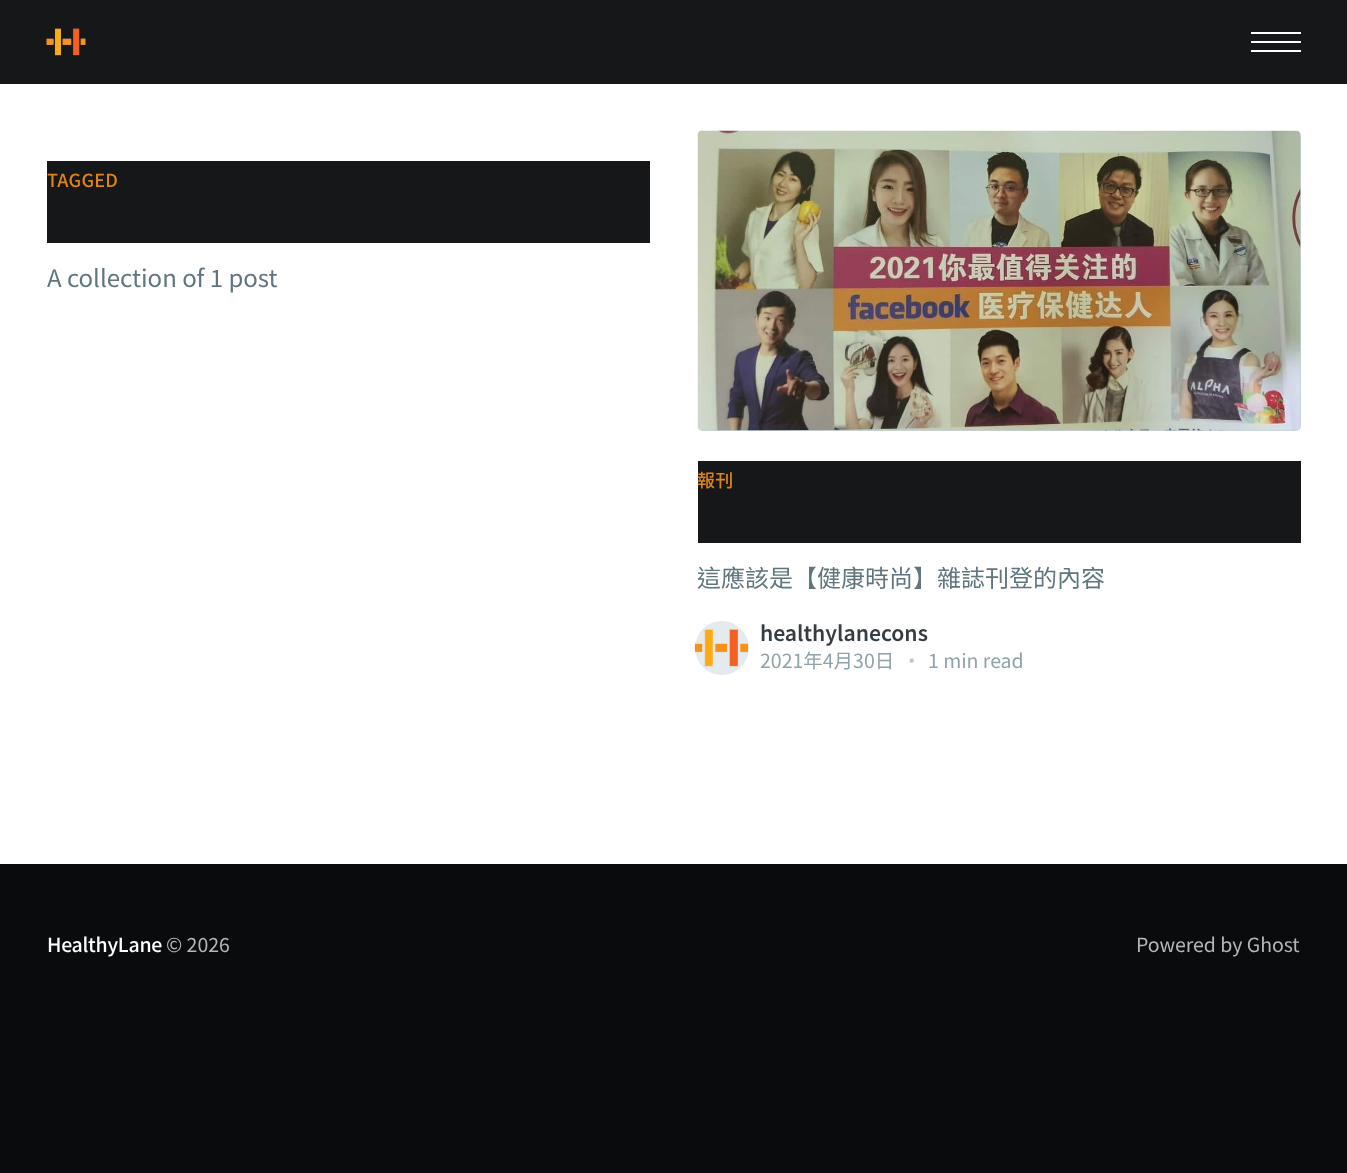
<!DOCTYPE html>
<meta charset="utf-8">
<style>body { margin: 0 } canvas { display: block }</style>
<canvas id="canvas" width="1347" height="1173"></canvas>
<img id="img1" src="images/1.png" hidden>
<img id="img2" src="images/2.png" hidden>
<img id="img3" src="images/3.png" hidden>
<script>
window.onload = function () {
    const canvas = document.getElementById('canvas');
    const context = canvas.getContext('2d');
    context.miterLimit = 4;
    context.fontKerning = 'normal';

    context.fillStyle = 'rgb(255, 255, 255)';
    context.fillRect(0, 0, 1347, 1173);
    context.fillStyle = 'rgb(22, 23, 25)';
    context.fillRect(0, 0, 1347, 84);
    context.drawImage(document.getElementById('img1'), 46, 28, 40, 28);
    context.fillStyle = 'rgb(255, 255, 255)';
    context.fillRect(1251, 32, 50, 2);
    context.fillRect(1251, 50, 50, 2);
    context.fillRect(1251, 41, 50, 2);
    context.fillStyle = 'rgb(22, 23, 25)';
    context.fillRect(47, 161, 603, 82);
    context.fillStyle = 'rgb(197, 210, 217)';
    context.beginPath();
    context.roundRect(698, 131, 603, 300, 5);
    context.fill();
    context.drawImage(document.getElementById('img2'), 697, 130, 604, 301);
    context.fillStyle = 'rgb(22, 23, 25)';
    context.fillRect(698, 461, 603, 82);
    context.fillStyle = 'rgb(228, 234, 237)';
    context.beginPath();
    context.arc(722, 648, 27, 0, 2 * Math.PI);
    context.fill();
    context.drawImage(document.getElementById('img3'), 694, 629, 55, 38);
    context.fillStyle = 'rgb(10, 11, 12)';
    context.fillRect(0, 864, 1347, 309);
    context.letterSpacing = '0.25px';
    context.font = '500 18px Noto Sans TC';
    context.fillStyle = 'rgb(223, 131, 25)';
    context.fillText('TAGGED', 47, 187);
    context.letterSpacing = '0px';
    context.font = '24px Noto Sans TC';
    context.fillStyle = 'rgb(96, 117, 126)';
    context.fillText('A collection of 1 post', 47, 287);
    context.letterSpacing = '0.25px';
    context.font = '500 18px Noto Sans TC';
    context.fillStyle = 'rgb(223, 131, 25)';
    context.fillText('報刊', 697, 487);
    context.letterSpacing = '0px';
    context.font = '24px Noto Sans TC';
    context.fillStyle = 'rgb(96, 117, 126)';
    context.fillText('這應該是【健康時尚】雜誌刊登的內容', 697, 587);
    context.font = '600 21px Noto Sans TC';
    context.fillStyle = 'rgb(55, 60, 68)';
    context.fillText('healthylanecons', 760, 641);
    context.font = '19.5px Noto Sans TC';
    context.fillStyle = 'rgb(144, 162, 170)';
    context.fillText('2021年4月30日', 760, 668);
    context.fillStyle = 'rgb(188, 199, 204)';
    context.fillText('•', 902, 668);
    context.fillStyle = 'rgb(144, 162, 170)';
    context.fillText('1 min read', 928, 668);
    context.letterSpacing = '-0.25px';
    context.font = '500 19.5px Noto Sans TC';
    context.fillStyle = 'rgb(255, 255, 255)';
    context.fillText('HealthyLane', 47, 952);
    context.letterSpacing = '0px';
    context.font = '19.5px Noto Sans TC';
    context.fillStyle = 'rgb(182, 182, 182)';
    context.fillText('© 2026', 166, 952);
    context.fillText('Powered by Ghost', 1136, 952);
};
</script>
